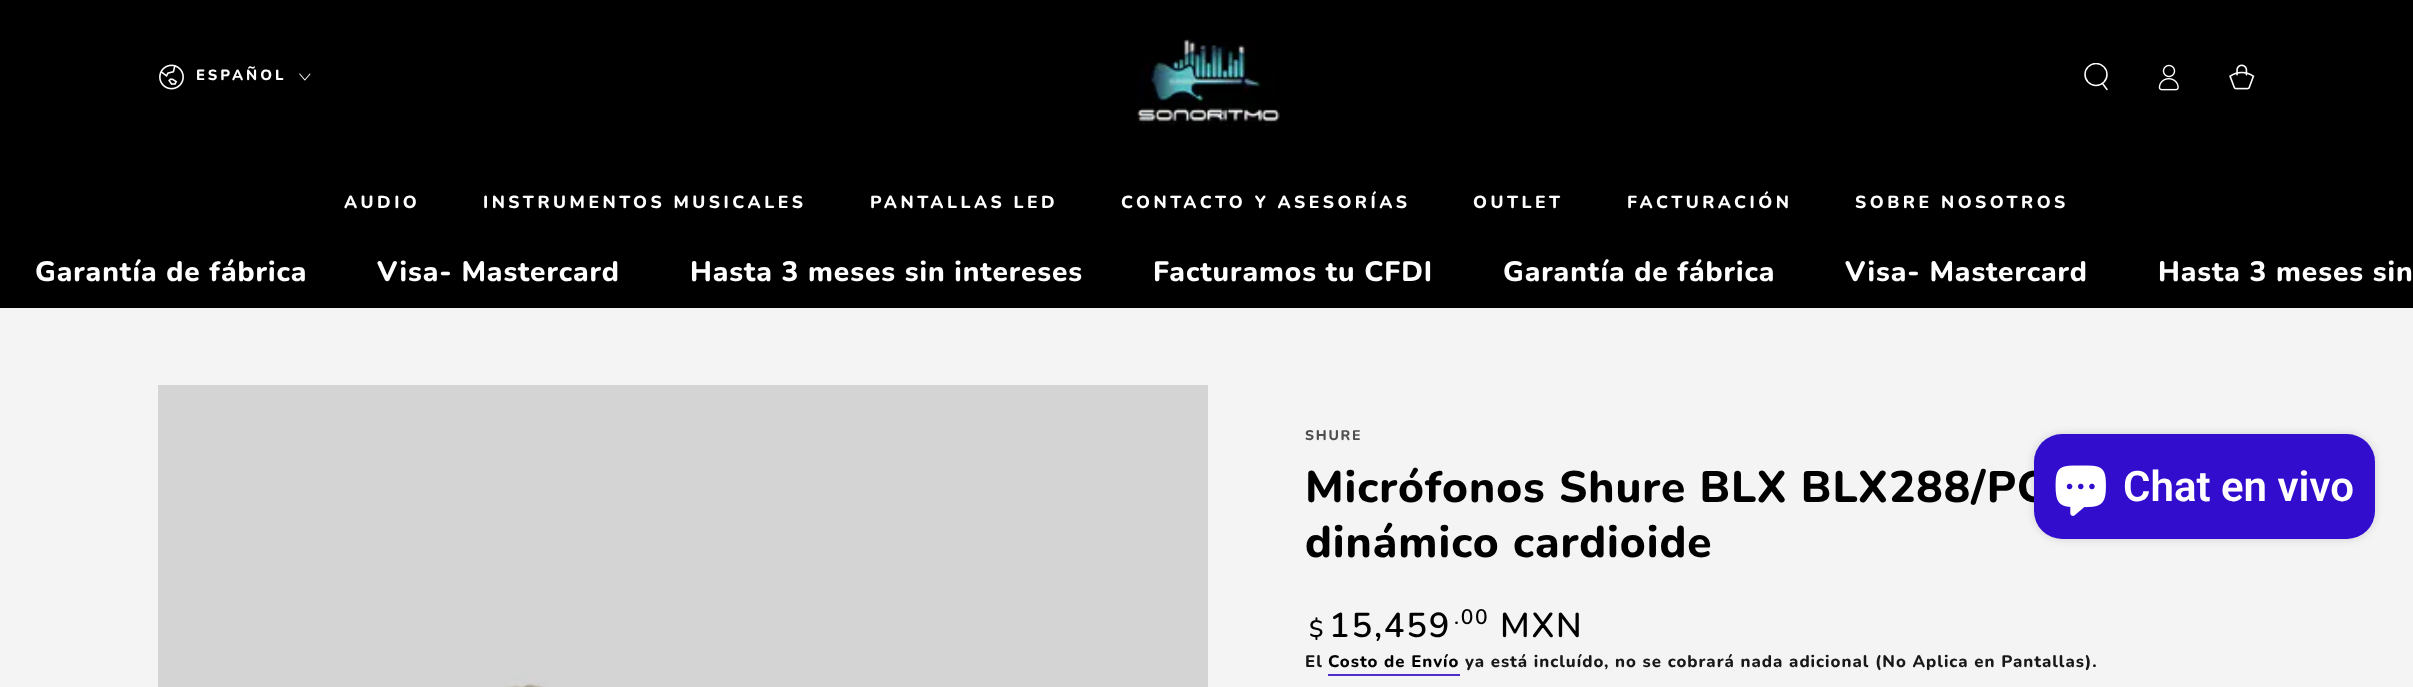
<!DOCTYPE html>
<meta charset="utf-8">
<style>body { margin: 0 } canvas { display: block }</style>
<canvas id="canvas" width="2413" height="687"></canvas>
<img id="img1" src="images/1.png" hidden>
<img id="img2" src="images/2.png" hidden>
<img id="img3" src="images/3.png" hidden>
<img id="img4" src="images/4.png" hidden>
<img id="img5" src="images/5.png" hidden>
<img id="img6" src="images/6.png" hidden>
<img id="img7" src="images/7.png" hidden>
<script>
window.onload = function () {
    const canvas = document.getElementById('canvas');
    const context = canvas.getContext('2d');
    context.miterLimit = 4;
    context.fontKerning = 'normal';

    context.fillStyle = 'rgb(244, 244, 244)';
    context.fillRect(0, 0, 2413, 687);
    context.fillStyle = 'rgb(0, 0, 0)';
    context.fillRect(0, 0, 2413, 308);
    context.drawImage(document.getElementById('img1'), 159, 64, 25, 26);
    context.drawImage(document.getElementById('img2'), 299, 73, 12, 8);
    context.drawImage(document.getElementById('img3'), 1137, 38, 143, 88);
    context.save();
    context.beginPath();
    context.rect(2083, 63, 28, 28);
    context.clip();
    context.beginPath();
    context.arc(2096, 74.5, 11, 0, 2 * Math.PI);
    context.strokeStyle = 'rgb(255, 255, 255)';
    context.lineWidth = 1.5;
    context.stroke();
    context.restore();
    context.beginPath();
    context.moveTo(2102.5, 83.5);
    context.lineTo(2107, 89.5);
    context.strokeStyle = 'rgb(255, 255, 255)';
    context.lineWidth = 1.5;
    context.lineCap = 'round';
    context.stroke();
    context.drawImage(document.getElementById('img4'), 2158, 64, 21, 27);
    context.drawImage(document.getElementById('img5'), 2229, 64, 26, 26);
    context.drawImage(document.getElementById('img6'), 158, 385, 1050, 302);
    context.fillStyle = 'rgb(80, 46, 202)';
    context.fillRect(1328, 674, 132, 2);
    context.fillStyle = 'rgba(0, 0, 0, 0.15)';
    context.filter = 'blur(4.5px)';
    context.beginPath();
    context.roundRect(2034, 434, 341, 105, 28);
    context.fill();
    context.filter = 'none';
    context.letterSpacing = '3px';
    context.font = '800 14.75px Nunito';
    context.fillStyle = 'rgb(255, 255, 255)';
    context.fillText('ESPAÑOL', 196, 80);
    context.letterSpacing = '3.5px';
    context.font = '800 17.5px Nunito';
    context.fillText('AUDIO', 344, 208);
    context.fillText('INSTRUMENTOS MUSICALES', 483, 208);
    context.fillText('PANTALLAS LED', 870, 208);
    context.fillText('CONTACTO Y ASESORÍAS', 1121, 208);
    context.fillText('OUTLET', 1473, 208);
    context.fillText('FACTURACIÓN', 1627, 208);
    context.fillText('SOBRE NOSOTROS', 1855, 208);
    context.letterSpacing = '0.95px';
    context.font = '800 28px Nunito';
    context.fillText('Garantía de fábrica', 35, 281);
    context.fillText('Visa- Mastercard', 377, 281);
    context.fillText('Hasta 3 meses sin intereses', 690, 281);
    context.fillText('Facturamos tu CFDI', 1153, 281);
    context.fillText('Garantía de fábrica', 1503, 281);
    context.fillText('Visa- Mastercard', 1845, 281);
    context.fillText('Hasta 3 meses sin', 2158, 281);
    context.letterSpacing = '1.75px';
    context.font = '800 14px Nunito';
    context.fillStyle = 'rgb(79, 79, 81)';
    context.fillText('SHURE', 1305, 440);
    context.letterSpacing = '0.95px';
    context.font = '800 44.1px Nunito';
    context.fillStyle = 'rgb(0, 0, 0)';
    context.fillText('Micrófonos Shure BLX BLX288/PG', 1305, 502);
    context.fillText('dinámico cardioide', 1305, 557);
    context.letterSpacing = '1.75px';
    context.font = '600 24px Nunito';
    context.fillText('$', 1309, 637);
    context.font = '600 34.5px Nunito';
    context.fillText('15,459', 1329, 637);
    context.font = '600 21px Nunito';
    context.fillText('.00', 1454, 624);
    context.font = '600 34.5px Nunito';
    context.fillText('MXN', 1500, 637);
    context.letterSpacing = '0.98px';
    context.font = '800 16.8px Nunito';
    context.fillStyle = 'rgb(24, 24, 26)';
    context.fillText('El', 1305, 667);
    context.fillStyle = 'rgb(0, 0, 0)';
    context.fillText('Costo de Envío', 1328, 667);
    context.fillStyle = 'rgb(24, 24, 26)';
    context.fillText('ya está incluído, no se cobrará nada adicional (No Aplica en Pantallas).', 1465, 667);
    context.fillStyle = 'rgb(50, 13, 206)';
    context.beginPath();
    context.roundRect(2034, 434, 341, 105, 28);
    context.fill();
    context.drawImage(document.getElementById('img7'), 2055, 465, 51, 51);
    context.letterSpacing = '0px';
    context.font = '600 42px Roboto';
    context.fillStyle = 'rgb(255, 255, 255)';
    context.fillText('Chat en vivo', 2123, 501);
};
</script>
